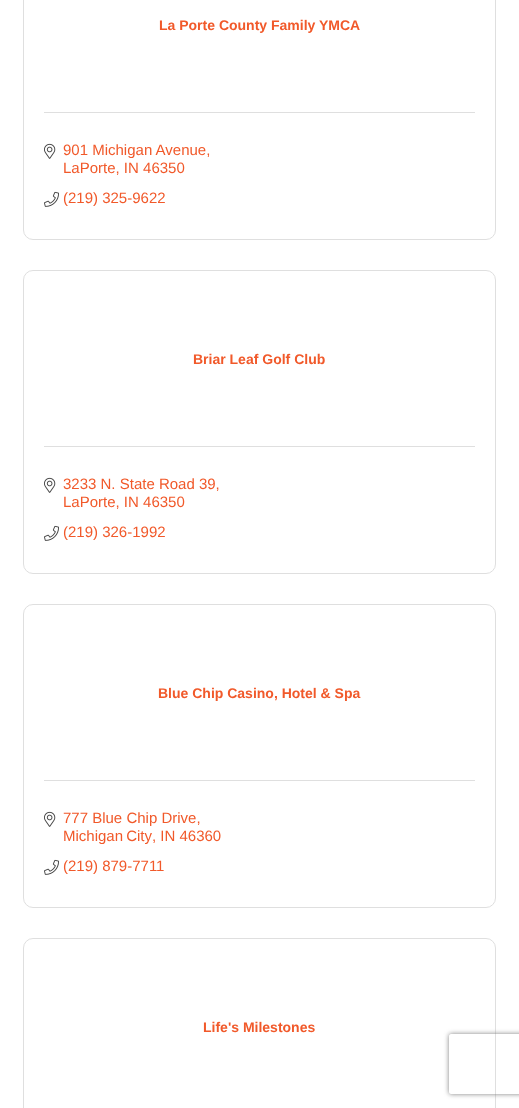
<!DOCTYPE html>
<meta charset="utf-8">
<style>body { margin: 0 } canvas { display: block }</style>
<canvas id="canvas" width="519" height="1108"></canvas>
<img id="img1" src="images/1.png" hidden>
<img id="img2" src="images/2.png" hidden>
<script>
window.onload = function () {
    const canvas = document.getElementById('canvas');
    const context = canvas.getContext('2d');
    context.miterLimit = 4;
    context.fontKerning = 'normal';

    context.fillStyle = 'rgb(255, 255, 255)';
    context.fillRect(0, 0, 519, 1108);
    context.beginPath();
    context.roundRect(23.5, -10.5, 472, 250, 9.5);
    context.strokeStyle = 'rgb(223, 223, 223)';
    context.stroke();
    context.fillStyle = 'rgb(223, 223, 223)';
    context.fillRect(44, 112, 431, 1);
    context.drawImage(document.getElementById('img1'), 44, 143, 12, 16);
    context.drawImage(document.getElementById('img2'), 44, 191, 15, 16);
    context.beginPath();
    context.roundRect(23.5, 270.5, 472, 303, 9.5);
    context.stroke();
    context.fillRect(44, 446, 431, 1);
    context.drawImage(document.getElementById('img1'), 44, 477, 12, 16);
    context.drawImage(document.getElementById('img2'), 44, 525, 15, 16);
    context.beginPath();
    context.roundRect(23.5, 604.5, 472, 303, 9.5);
    context.stroke();
    context.fillRect(44, 780, 431, 1);
    context.drawImage(document.getElementById('img1'), 44, 811, 12, 16);
    context.drawImage(document.getElementById('img2'), 44, 859, 15, 16);
    context.beginPath();
    context.roundRect(23.5, 938.5, 472, 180, 9.5);
    context.stroke();
    context.save();
    context.beginPath();
    context.moveTo(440, 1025);
    context.lineTo(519, 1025);
    context.lineTo(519, 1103);
    context.lineTo(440, 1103);
    context.closePath();
    context.moveTo(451, 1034);
    context.lineTo(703, 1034);
    context.bezierCurveTo(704, 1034, 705, 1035, 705, 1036);
    context.lineTo(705, 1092);
    context.bezierCurveTo(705, 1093, 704, 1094, 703, 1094);
    context.lineTo(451, 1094);
    context.bezierCurveTo(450, 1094, 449, 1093, 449, 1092);
    context.lineTo(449, 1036);
    context.bezierCurveTo(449, 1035, 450, 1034, 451, 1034);
    context.closePath();
    context.clip('evenodd');
    context.fillStyle = 'rgb(128, 128, 128)';
    context.filter = 'blur(2.5px)';
    context.beginPath();
    context.roundRect(449, 1034, 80, 60, 2);
    context.fill();
    context.filter = 'none';
    context.restore();
    context.font = 'bold 14px Liberation Sans';
    context.fillStyle = 'rgb(241, 89, 42)';
    context.fillText('La Porte County Family YMCA', 159, 30);
    context.font = '15px Liberation Sans';
    context.fillText('901 Michigan Avenue,', 63, 155);
    context.fillText('LaPorte, IN 46350', 63, 173);
    context.fillText('(219) 325-9622', 63, 203);
    context.font = 'bold 14px Liberation Sans';
    context.fillText('Briar Leaf Golf Club', 193, 364);
    context.font = '15px Liberation Sans';
    context.fillText('3233 N. State Road 39,', 63, 489);
    context.fillText('LaPorte, IN 46350', 63, 507);
    context.fillText('(219) 326-1992', 63, 537);
    context.font = 'bold 14px Liberation Sans';
    context.fillText('Blue Chip Casino, Hotel & Spa', 158, 698);
    context.font = '15px Liberation Sans';
    context.fillText('777 Blue Chip Drive,', 63, 823);
    context.wordSpacing = '-1px';
    context.fillText('Michigan City', 63, 841);
    context.wordSpacing = '0px';
    context.fillText(', IN 46360', 152, 841);
    context.fillText('(219) 879-7711', 63, 871);
    context.font = 'bold 14px Liberation Sans';
    context.fillText('Life\'s Milestones', 203, 1032);
};
</script>
